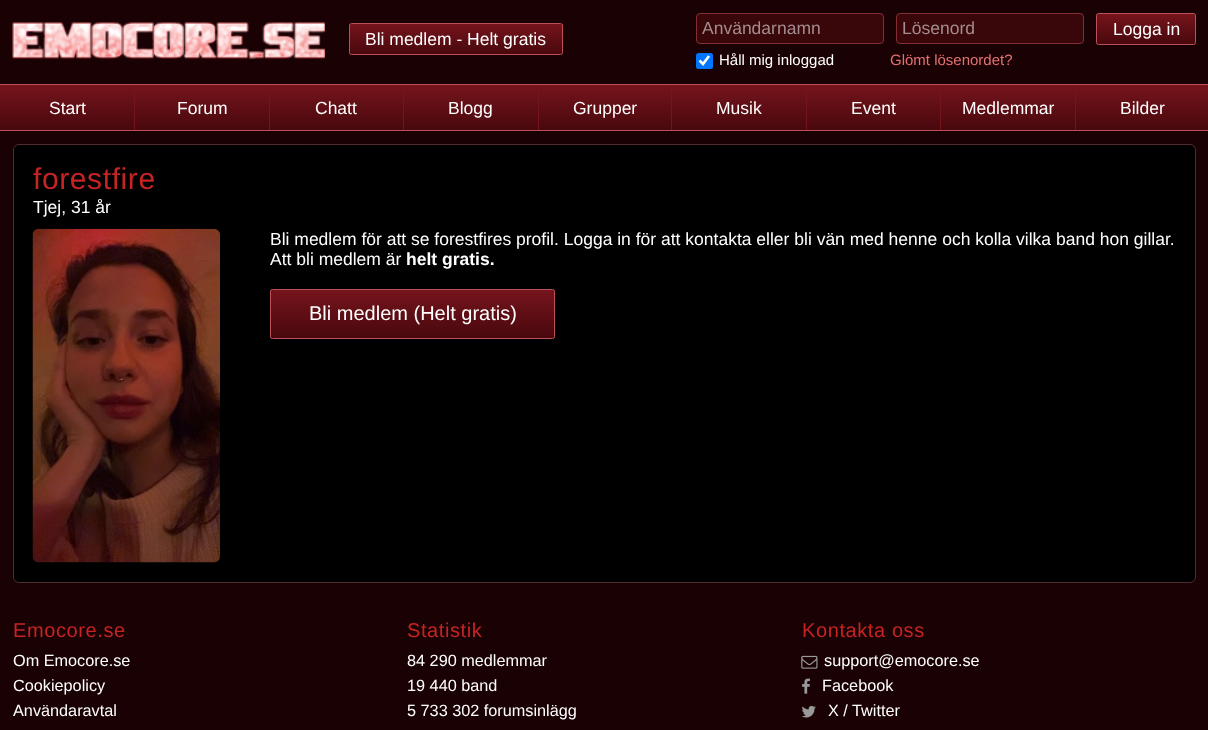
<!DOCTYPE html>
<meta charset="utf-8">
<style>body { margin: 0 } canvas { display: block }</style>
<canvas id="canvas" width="1208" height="730"></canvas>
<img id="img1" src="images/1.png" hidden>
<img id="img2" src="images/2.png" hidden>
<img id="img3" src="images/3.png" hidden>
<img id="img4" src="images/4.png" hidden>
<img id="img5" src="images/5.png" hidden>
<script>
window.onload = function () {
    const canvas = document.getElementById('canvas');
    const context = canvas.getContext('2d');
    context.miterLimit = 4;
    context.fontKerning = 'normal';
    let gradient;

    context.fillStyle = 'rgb(26, 1, 4)';
    context.fillRect(0, 0, 1208, 730);
    context.drawImage(document.getElementById('img1'), 12, 22, 313, 37);
    context.save();
    context.beginPath();
    context.roundRect(349, 23, 214, 32, 2.5);
    context.clip();
    gradient = context.createLinearGradient(456, 24, 456, 54);
    gradient.addColorStop(0, 'rgb(118, 20, 28)');
    gradient.addColorStop(1, 'rgb(72, 8, 13)');
    context.fillStyle = gradient;
    context.fillRect(349, 24, 214, 30);
    context.restore();
    context.beginPath();
    context.roundRect(349.5, 23.5, 213, 31, 2);
    context.strokeStyle = 'rgb(188, 80, 88)';
    context.stroke();
    context.fillStyle = 'rgb(57, 6, 10)';
    context.beginPath();
    context.roundRect(696.5, 13.5, 187, 30, 3.5);
    context.fill();
    context.strokeStyle = 'rgb(131, 46, 53)';
    context.stroke();
    context.beginPath();
    context.roundRect(896.5, 13.5, 187, 30, 3.5);
    context.fill();
    context.stroke();
    context.save();
    context.beginPath();
    context.roundRect(1096, 13, 100, 32, 2.5);
    context.clip();
    gradient = context.createLinearGradient(1146, 14, 1146, 44);
    gradient.addColorStop(0, 'rgb(118, 20, 28)');
    gradient.addColorStop(1, 'rgb(72, 8, 13)');
    context.fillStyle = gradient;
    context.fillRect(1096, 14, 100, 30);
    context.restore();
    context.beginPath();
    context.roundRect(1096.5, 13.5, 99, 31, 2);
    context.strokeStyle = 'rgb(188, 80, 88)';
    context.stroke();
    context.fillStyle = 'rgb(0, 117, 255)';
    context.beginPath();
    context.roundRect(696, 53, 17, 16, 2.5);
    context.fill();
    context.beginPath();
    context.moveTo(699.5, 60.5);
    context.lineTo(703, 64);
    context.lineTo(709, 56);
    context.strokeStyle = 'rgb(255, 255, 255)';
    context.lineWidth = 2.6;
    context.stroke();
    gradient = context.createLinearGradient(604, 85, 604, 130);
    gradient.addColorStop(0, 'rgb(118, 20, 28)');
    gradient.addColorStop(1, 'rgb(72, 8, 13)');
    context.fillStyle = gradient;
    context.fillRect(0, 85, 1208, 45);
    context.fillStyle = 'rgb(188, 80, 88)';
    context.fillRect(0, 84, 1208, 1);
    context.fillRect(0, 130, 1208, 1);
    context.fillStyle = 'rgb(118, 20, 28)';
    context.fillRect(134, 85, 1, 45);
    context.fillRect(269, 85, 1, 45);
    context.fillRect(403, 85, 1, 45);
    context.fillRect(538, 85, 1, 45);
    context.fillRect(671, 85, 1, 45);
    context.fillRect(806, 85, 1, 45);
    context.fillRect(940, 85, 1, 45);
    context.fillRect(1075, 85, 1, 45);
    context.fillStyle = 'rgb(0, 0, 0)';
    context.beginPath();
    context.roundRect(13.5, 144.5, 1182, 438, 5.5);
    context.fill();
    context.strokeStyle = 'rgb(80, 44, 48)';
    context.lineWidth = 1;
    context.stroke();
    context.drawImage(document.getElementById('img2'), 32, 228, 188, 335);
    context.save();
    context.beginPath();
    context.roundRect(270, 289, 285, 50, 2.5);
    context.clip();
    gradient = context.createLinearGradient(413, 290, 413, 338);
    gradient.addColorStop(0, 'rgb(118, 20, 28)');
    gradient.addColorStop(1, 'rgb(72, 8, 13)');
    context.fillStyle = gradient;
    context.fillRect(270, 290, 285, 48);
    context.restore();
    context.beginPath();
    context.roundRect(270.5, 289.5, 284, 49, 2);
    context.strokeStyle = 'rgb(188, 80, 88)';
    context.stroke();
    context.drawImage(document.getElementById('img3'), 801, 655, 17, 14);
    context.drawImage(document.getElementById('img4'), 802, 678, 8, 16);
    context.drawImage(document.getElementById('img5'), 801, 705, 15, 13);
    context.font = '17.5px Liberation Sans';
    context.fillStyle = 'rgb(255, 255, 255)';
    context.fillText('Bli medlem - Helt gratis', 365, 45);
    context.fillStyle = 'rgb(164, 141, 143)';
    context.fillText('Användarnamn', 702, 34);
    context.fillText('Lösenord', 902, 34);
    context.fillStyle = 'rgb(255, 255, 255)';
    context.fillText('Logga in', 1113, 35);
    context.font = '15px Liberation Sans';
    context.fillText('Håll mig inloggad', 719, 65);
    context.fillStyle = 'rgb(229, 113, 113)';
    context.fillText('Glömt lösenordet?', 890, 65);
    context.font = '17.5px Liberation Sans';
    context.fillStyle = 'rgb(255, 255, 255)';
    context.fillText('Start', 49, 114);
    context.fillText('Forum', 177, 114);
    context.fillText('Chatt', 315, 114);
    context.fillText('Blogg', 448, 114);
    context.fillText('Grupper', 573, 114);
    context.fillText('Musik', 716, 114);
    context.fillText('Event', 851, 114);
    context.fillText('Medlemmar', 962, 114);
    context.fillText('Bilder', 1120, 114);
    context.letterSpacing = '0.6px';
    context.font = '30px Liberation Sans';
    context.fillStyle = 'rgb(198, 36, 36)';
    context.fillText('forestfire', 33, 189);
    context.letterSpacing = '0px';
    context.font = '17.5px Liberation Sans';
    context.fillStyle = 'rgb(255, 255, 255)';
    context.fillText('Tjej, 31 år', 33, 213);
    context.fillText('Bli medlem för att se forestfires profil. Logga in för att kontakta eller bli vän med henne och kolla vilka band hon gillar.', 270, 245);
    context.fillText('Att bli medlem är', 270, 265);
    context.font = 'bold 17.5px Liberation Sans';
    context.fillText('helt gratis.', 406, 265);
    context.font = '20px Liberation Sans';
    context.fillText('Bli medlem (Helt gratis)', 309, 320);
    context.letterSpacing = '0.6px';
    context.fillStyle = 'rgb(198, 36, 36)';
    context.fillText('Emocore.se', 13, 637);
    context.letterSpacing = '0px';
    context.font = '16.25px Liberation Sans';
    context.fillStyle = 'rgb(255, 255, 255)';
    context.fillText('Om Emocore.se', 13, 666);
    context.fillText('Cookiepolicy', 13, 691);
    context.fillText('Användaravtal', 13, 716);
    context.letterSpacing = '0.6px';
    context.font = '20px Liberation Sans';
    context.fillStyle = 'rgb(198, 36, 36)';
    context.fillText('Statistik', 407, 637);
    context.letterSpacing = '0px';
    context.font = '16.25px Liberation Sans';
    context.fillStyle = 'rgb(255, 255, 255)';
    context.fillText('84 290 medlemmar', 407, 666);
    context.fillText('19 440 band', 407, 691);
    context.fillText('5 733 302 forumsinlägg', 407, 716);
    context.letterSpacing = '0.6px';
    context.font = '20px Liberation Sans';
    context.fillStyle = 'rgb(198, 36, 36)';
    context.fillText('Kontakta oss', 802, 637);
    context.letterSpacing = '0px';
    context.font = '16.25px Liberation Sans';
    context.fillStyle = 'rgb(255, 255, 255)';
    context.fillText('support@emocore.se', 824, 666);
    context.fillText('Facebook', 822, 691);
    context.fillText('X / Twitter', 828, 716);
};
</script>
